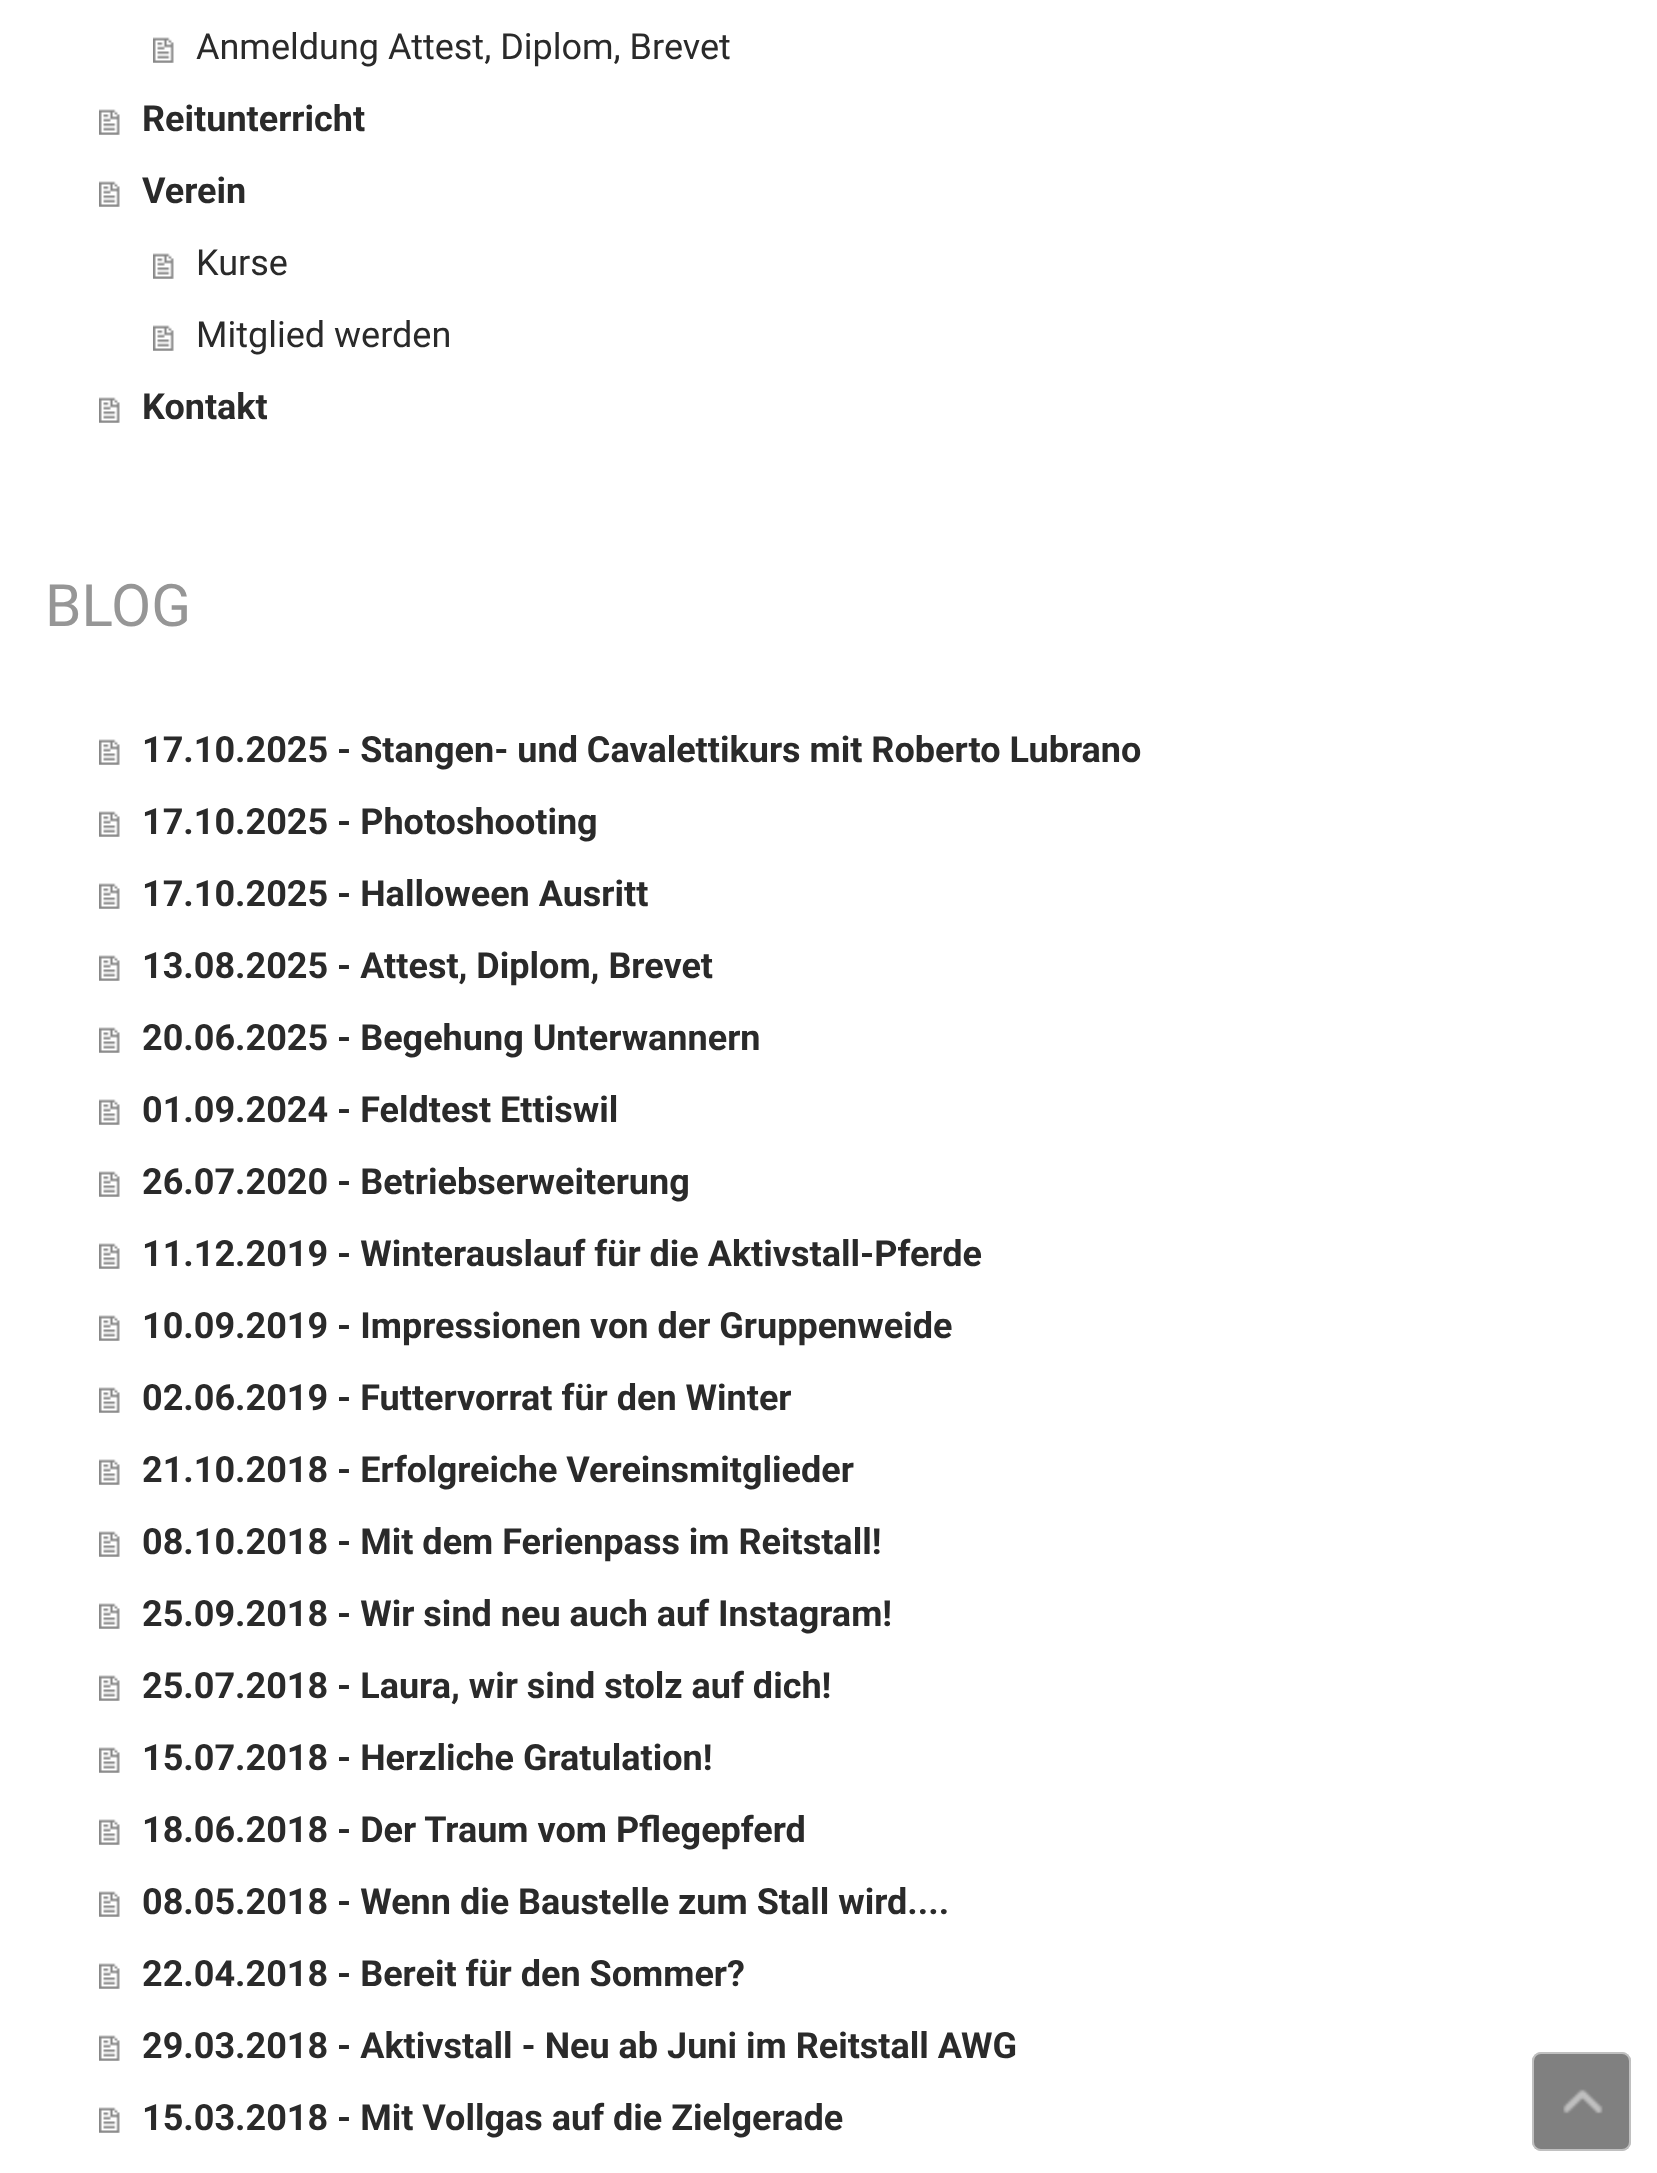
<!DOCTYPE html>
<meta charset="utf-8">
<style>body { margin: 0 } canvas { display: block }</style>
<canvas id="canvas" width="1657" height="2173"></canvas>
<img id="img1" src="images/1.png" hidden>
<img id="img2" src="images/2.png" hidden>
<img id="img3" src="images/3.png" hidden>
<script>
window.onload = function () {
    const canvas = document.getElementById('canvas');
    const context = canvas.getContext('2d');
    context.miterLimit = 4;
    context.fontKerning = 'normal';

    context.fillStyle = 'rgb(255, 255, 255)';
    context.fillRect(0, 0, 1657, 2173);
    context.drawImage(document.getElementById('img1'), 153, 37, 21, 26);
    context.drawImage(document.getElementById('img1'), 99, 109, 21, 26);
    context.drawImage(document.getElementById('img1'), 99, 181, 21, 26);
    context.drawImage(document.getElementById('img1'), 153, 253, 21, 26);
    context.drawImage(document.getElementById('img1'), 153, 325, 21, 26);
    context.drawImage(document.getElementById('img1'), 99, 397, 21, 26);
    context.drawImage(document.getElementById('img1'), 99, 739, 21, 26);
    context.drawImage(document.getElementById('img1'), 99, 811, 21, 26);
    context.drawImage(document.getElementById('img2'), 99, 883, 21, 26);
    context.drawImage(document.getElementById('img1'), 99, 955, 21, 26);
    context.drawImage(document.getElementById('img1'), 99, 1027, 21, 26);
    context.drawImage(document.getElementById('img1'), 99, 1099, 21, 26);
    context.drawImage(document.getElementById('img1'), 99, 1171, 21, 26);
    context.drawImage(document.getElementById('img1'), 99, 1243, 21, 26);
    context.drawImage(document.getElementById('img1'), 99, 1315, 21, 26);
    context.drawImage(document.getElementById('img2'), 99, 1387, 21, 26);
    context.drawImage(document.getElementById('img1'), 99, 1459, 21, 26);
    context.drawImage(document.getElementById('img1'), 99, 1531, 21, 26);
    context.drawImage(document.getElementById('img1'), 99, 1603, 21, 26);
    context.drawImage(document.getElementById('img1'), 99, 1675, 21, 26);
    context.drawImage(document.getElementById('img1'), 99, 1747, 21, 26);
    context.drawImage(document.getElementById('img1'), 99, 1819, 21, 26);
    context.drawImage(document.getElementById('img1'), 99, 1891, 21, 26);
    context.drawImage(document.getElementById('img1'), 99, 1963, 21, 26);
    context.drawImage(document.getElementById('img1'), 99, 2035, 21, 26);
    context.drawImage(document.getElementById('img1'), 99, 2107, 21, 26);
    context.fillStyle = 'rgb(128, 128, 128)';
    context.beginPath();
    context.roundRect(1532, 2052, 99, 99, 9);
    context.fill();
    context.beginPath();
    context.roundRect(1533, 2053, 97, 97, 8);
    context.strokeStyle = 'rgba(255, 255, 255, 0.5)';
    context.lineWidth = 2;
    context.stroke();
    context.drawImage(document.getElementById('img3'), 1563, 2089, 40, 25);
    context.font = '36px Roboto';
    context.fillStyle = 'rgb(42, 42, 42)';
    context.fillText('Anmeldung Attest, Diplom, Brevet', 196, 59);
    context.font = 'bold 36px Roboto';
    context.fillText('Reitunterricht', 142, 131);
    context.fillText('Verein', 142, 203);
    context.font = '36px Roboto';
    context.fillText('Kurse', 196, 275);
    context.fillText('Mitglied werden', 196, 347);
    context.font = 'bold 36px Roboto';
    context.fillText('Kontakt', 142, 419);
    context.font = '58.5px Roboto';
    context.fillStyle = 'rgb(150, 150, 150)';
    context.fillText('BLOG', 45, 626);
    context.font = 'bold 36px Roboto';
    context.fillStyle = 'rgb(42, 42, 42)';
    context.fillText('17.10.2025 - Stangen- und Cavalettikurs mit Roberto Lubrano', 142, 762);
    context.fillText('17.10.2025 - Photoshooting', 142, 834);
    context.fillText('17.10.2025 - Halloween Ausritt', 142, 906);
    context.fillText('13.08.2025 - Attest, Diplom, Brevet', 142, 978);
    context.fillText('20.06.2025 - Begehung Unterwannern', 142, 1050);
    context.fillText('01.09.2024 - Feldtest Ettiswil', 142, 1122);
    context.fillText('26.07.2020 - Betriebserweiterung', 142, 1194);
    context.fillText('11.12.2019 - Winterauslauf für die Aktivstall-Pferde', 142, 1266);
    context.fillText('10.09.2019 - Impressionen von der Gruppenweide', 142, 1338);
    context.fillText('02.06.2019 - Futtervorrat für den Winter', 142, 1410);
    context.fillText('21.10.2018 - Erfolgreiche Vereinsmitglieder', 142, 1482);
    context.fillText('08.10.2018 - Mit dem Ferienpass im Reitstall!', 142, 1554);
    context.fillText('25.09.2018 - Wir sind neu auch auf Instagram!', 142, 1626);
    context.fillText('25.07.2018 - Laura, wir sind stolz auf dich!', 142, 1698);
    context.fillText('15.07.2018 - Herzliche Gratulation!', 142, 1770);
    context.fillText('18.06.2018 - Der Traum vom Pflegepferd', 142, 1842);
    context.fillText('08.05.2018 - Wenn die Baustelle zum Stall wird....', 142, 1914);
    context.fillText('22.04.2018 - Bereit für den Sommer?', 142, 1986);
    context.fillText('29.03.2018 - Aktivstall - Neu ab Juni im Reitstall AWG', 142, 2058);
    context.fillText('15.03.2018 - Mit Vollgas auf die Zielgerade', 142, 2130);
};
</script>
